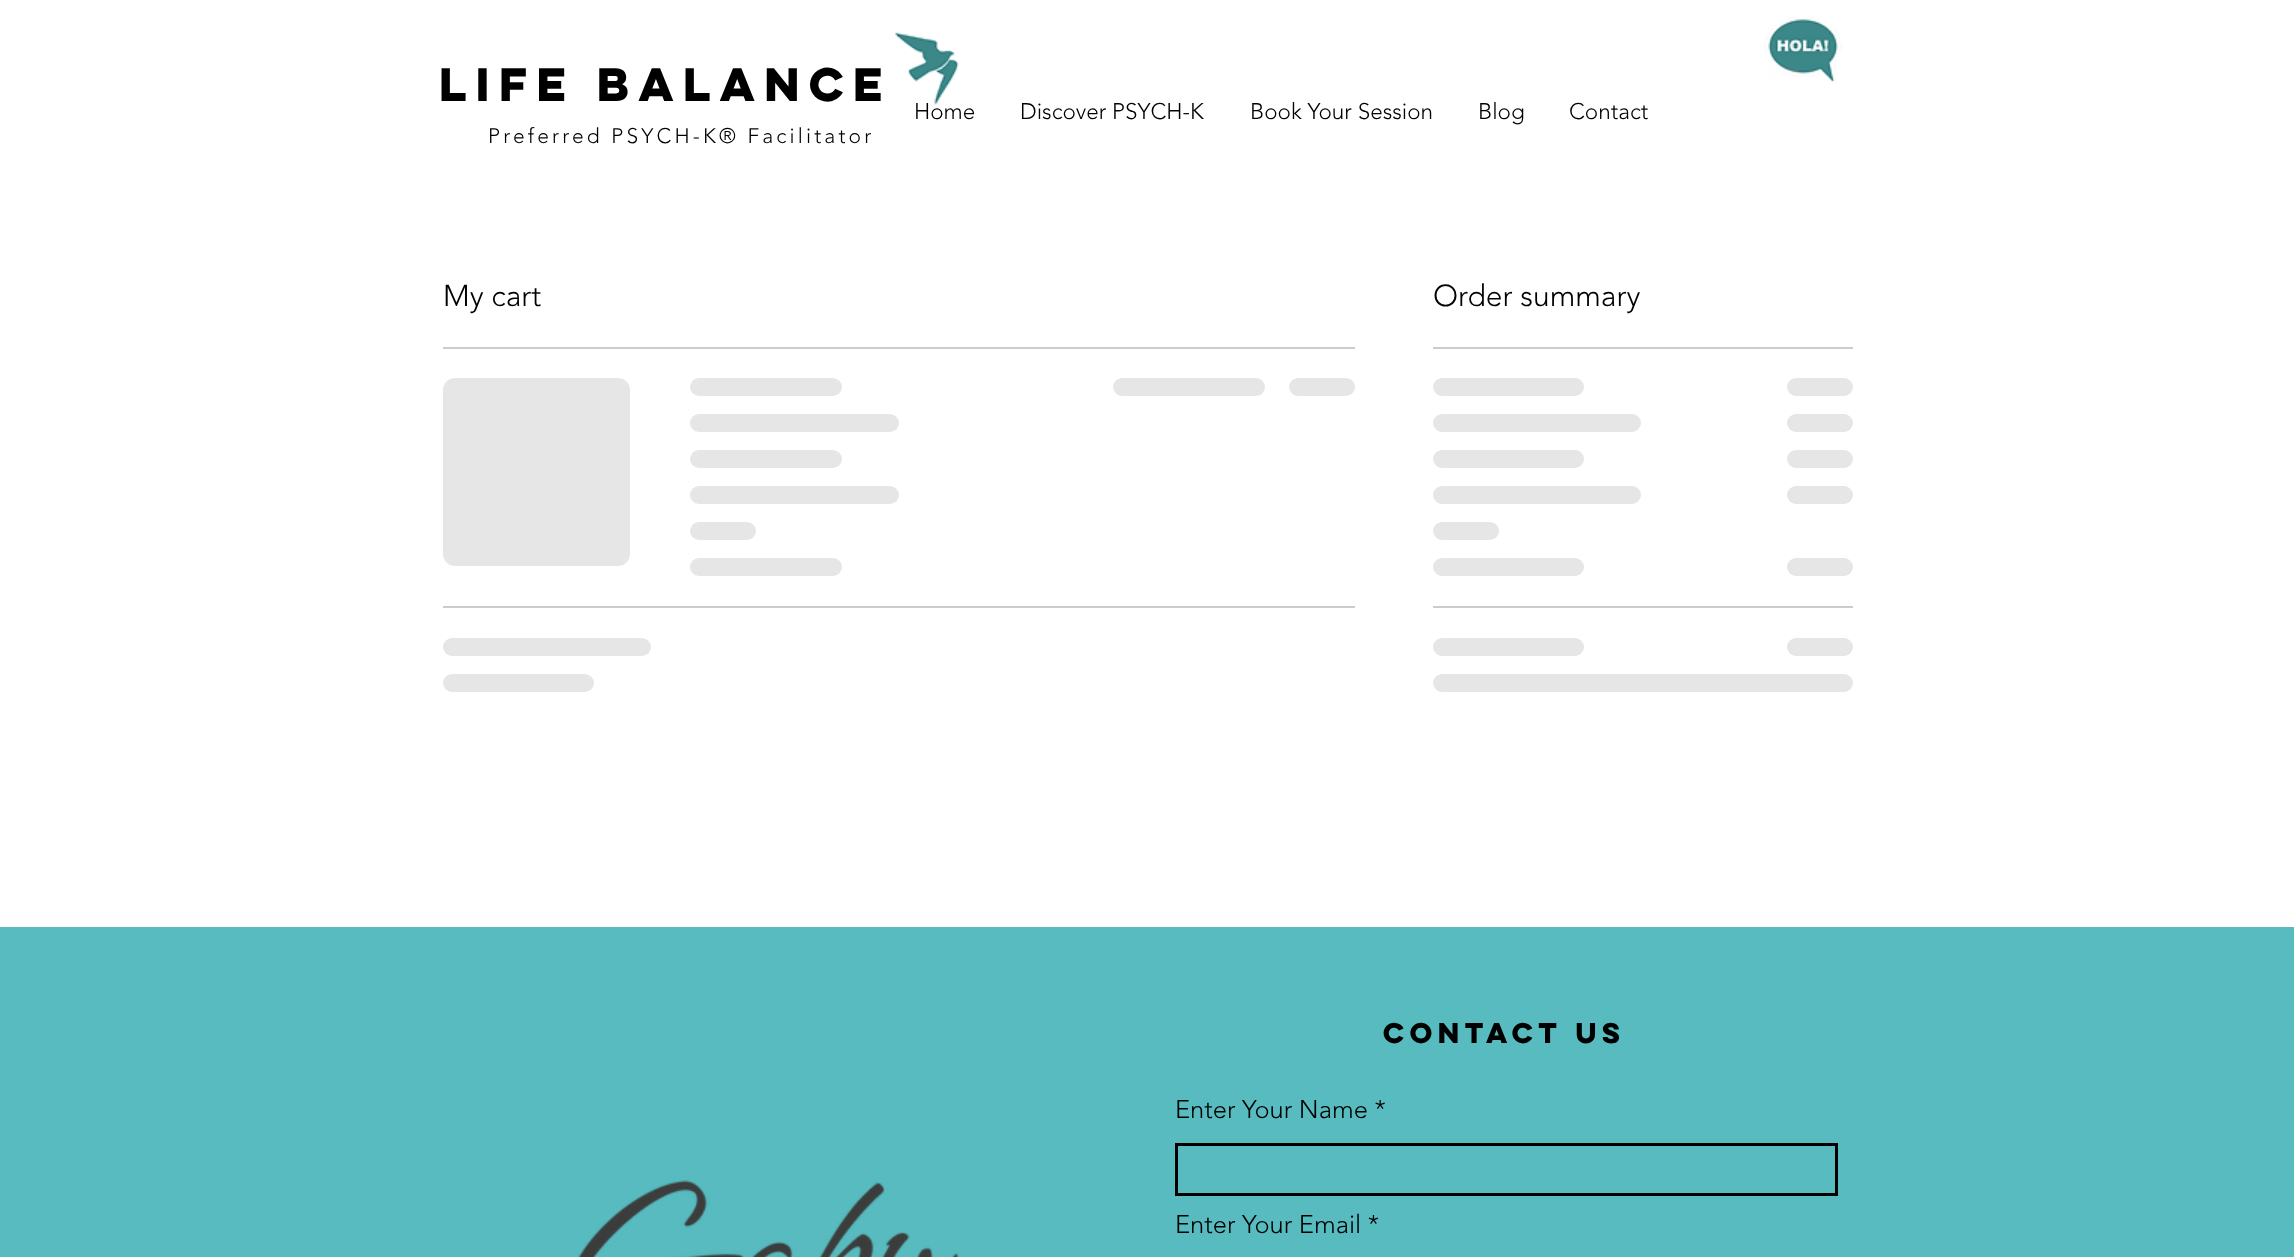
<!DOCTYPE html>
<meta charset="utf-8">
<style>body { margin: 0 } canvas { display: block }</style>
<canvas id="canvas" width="2294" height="1257"></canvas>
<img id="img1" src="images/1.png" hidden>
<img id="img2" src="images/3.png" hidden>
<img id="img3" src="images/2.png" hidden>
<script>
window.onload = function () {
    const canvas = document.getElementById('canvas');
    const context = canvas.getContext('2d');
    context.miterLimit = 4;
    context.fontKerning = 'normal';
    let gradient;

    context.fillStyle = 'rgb(255, 255, 255)';
    context.fillRect(0, 0, 2294, 1257);
    context.drawImage(document.getElementById('img1'), 1764, 17, 78, 65);
    context.fillStyle = 'rgb(204, 204, 204)';
    context.fillRect(443, 347, 912, 2);
    gradient = context.createLinearGradient(443, 472, 1193, 472);
    gradient.addColorStop(0.25, 'rgb(230, 230, 230)');
    gradient.addColorStop(0.37, 'rgb(204, 204, 204)');
    gradient.addColorStop(0.63, 'rgb(230, 230, 230)');
    context.fillStyle = gradient;
    context.beginPath();
    context.roundRect(443, 378, 187, 188, 12);
    context.fill();
    gradient = context.createLinearGradient(690, 387, 1296, 387);
    gradient.addColorStop(0.25, 'rgb(230, 230, 230)');
    gradient.addColorStop(0.37, 'rgb(204, 204, 204)');
    gradient.addColorStop(0.63, 'rgb(230, 230, 230)');
    context.fillStyle = gradient;
    context.beginPath();
    context.roundRect(690, 378, 152, 18, 9);
    context.fill();
    gradient = context.createLinearGradient(690, 423, 1524, 423);
    gradient.addColorStop(0.25, 'rgb(230, 230, 230)');
    gradient.addColorStop(0.37, 'rgb(204, 204, 204)');
    gradient.addColorStop(0.63, 'rgb(230, 230, 230)');
    context.fillStyle = gradient;
    context.beginPath();
    context.roundRect(690, 414, 209, 18, 9);
    context.fill();
    gradient = context.createLinearGradient(690, 459, 1296, 459);
    gradient.addColorStop(0.25, 'rgb(230, 230, 230)');
    gradient.addColorStop(0.37, 'rgb(204, 204, 204)');
    gradient.addColorStop(0.63, 'rgb(230, 230, 230)');
    context.fillStyle = gradient;
    context.beginPath();
    context.roundRect(690, 450, 152, 18, 9);
    context.fill();
    gradient = context.createLinearGradient(690, 495, 1524, 495);
    gradient.addColorStop(0.25, 'rgb(230, 230, 230)');
    gradient.addColorStop(0.37, 'rgb(204, 204, 204)');
    gradient.addColorStop(0.63, 'rgb(230, 230, 230)');
    context.fillStyle = gradient;
    context.beginPath();
    context.roundRect(690, 486, 209, 18, 9);
    context.fill();
    gradient = context.createLinearGradient(690, 531, 954, 531);
    gradient.addColorStop(0.25, 'rgb(230, 230, 230)');
    gradient.addColorStop(0.37, 'rgb(204, 204, 204)');
    gradient.addColorStop(0.63, 'rgb(230, 230, 230)');
    context.fillStyle = gradient;
    context.beginPath();
    context.roundRect(690, 522, 66, 18, 9);
    context.fill();
    gradient = context.createLinearGradient(690, 567, 1296, 567);
    gradient.addColorStop(0.25, 'rgb(230, 230, 230)');
    gradient.addColorStop(0.37, 'rgb(204, 204, 204)');
    gradient.addColorStop(0.63, 'rgb(230, 230, 230)');
    context.fillStyle = gradient;
    context.beginPath();
    context.roundRect(690, 558, 152, 18, 9);
    context.fill();
    gradient = context.createLinearGradient(1113, 387, 1719, 387);
    gradient.addColorStop(0.25, 'rgb(230, 230, 230)');
    gradient.addColorStop(0.37, 'rgb(204, 204, 204)');
    gradient.addColorStop(0.63, 'rgb(230, 230, 230)');
    context.fillStyle = gradient;
    context.beginPath();
    context.roundRect(1113, 378, 152, 18, 9);
    context.fill();
    gradient = context.createLinearGradient(1289, 387, 1553, 387);
    gradient.addColorStop(0.25, 'rgb(230, 230, 230)');
    gradient.addColorStop(0.37, 'rgb(204, 204, 204)');
    gradient.addColorStop(0.63, 'rgb(230, 230, 230)');
    context.fillStyle = gradient;
    context.beginPath();
    context.roundRect(1289, 378, 66, 18, 9);
    context.fill();
    context.fillStyle = 'rgb(204, 204, 204)';
    context.fillRect(443, 606, 912, 2);
    gradient = context.createLinearGradient(443, 647, 1277, 647);
    gradient.addColorStop(0.25, 'rgb(230, 230, 230)');
    gradient.addColorStop(0.37, 'rgb(204, 204, 204)');
    gradient.addColorStop(0.63, 'rgb(230, 230, 230)');
    context.fillStyle = gradient;
    context.beginPath();
    context.roundRect(443, 638, 208, 18, 9);
    context.fill();
    gradient = context.createLinearGradient(443, 683, 1049, 683);
    gradient.addColorStop(0.25, 'rgb(230, 230, 230)');
    gradient.addColorStop(0.37, 'rgb(204, 204, 204)');
    gradient.addColorStop(0.63, 'rgb(230, 230, 230)');
    context.fillStyle = gradient;
    context.beginPath();
    context.roundRect(443, 674, 151, 18, 9);
    context.fill();
    context.fillStyle = 'rgb(204, 204, 204)';
    context.fillRect(1433, 347, 420, 2);
    gradient = context.createLinearGradient(1433, 387, 2039, 387);
    gradient.addColorStop(0.25, 'rgb(230, 230, 230)');
    gradient.addColorStop(0.37, 'rgb(204, 204, 204)');
    gradient.addColorStop(0.63, 'rgb(230, 230, 230)');
    context.fillStyle = gradient;
    context.beginPath();
    context.roundRect(1433, 378, 151, 18, 9);
    context.fill();
    gradient = context.createLinearGradient(1787, 387, 2051, 387);
    gradient.addColorStop(0.25, 'rgb(230, 230, 230)');
    gradient.addColorStop(0.37, 'rgb(204, 204, 204)');
    gradient.addColorStop(0.63, 'rgb(230, 230, 230)');
    context.fillStyle = gradient;
    context.beginPath();
    context.roundRect(1787, 378, 66, 18, 9);
    context.fill();
    gradient = context.createLinearGradient(1433, 423, 2267, 423);
    gradient.addColorStop(0.25, 'rgb(230, 230, 230)');
    gradient.addColorStop(0.37, 'rgb(204, 204, 204)');
    gradient.addColorStop(0.63, 'rgb(230, 230, 230)');
    context.fillStyle = gradient;
    context.beginPath();
    context.roundRect(1433, 414, 208, 18, 9);
    context.fill();
    gradient = context.createLinearGradient(1787, 423, 2051, 423);
    gradient.addColorStop(0.25, 'rgb(230, 230, 230)');
    gradient.addColorStop(0.37, 'rgb(204, 204, 204)');
    gradient.addColorStop(0.63, 'rgb(230, 230, 230)');
    context.fillStyle = gradient;
    context.beginPath();
    context.roundRect(1787, 414, 66, 18, 9);
    context.fill();
    gradient = context.createLinearGradient(1433, 459, 2039, 459);
    gradient.addColorStop(0.25, 'rgb(230, 230, 230)');
    gradient.addColorStop(0.37, 'rgb(204, 204, 204)');
    gradient.addColorStop(0.63, 'rgb(230, 230, 230)');
    context.fillStyle = gradient;
    context.beginPath();
    context.roundRect(1433, 450, 151, 18, 9);
    context.fill();
    gradient = context.createLinearGradient(1787, 459, 2051, 459);
    gradient.addColorStop(0.25, 'rgb(230, 230, 230)');
    gradient.addColorStop(0.37, 'rgb(204, 204, 204)');
    gradient.addColorStop(0.63, 'rgb(230, 230, 230)');
    context.fillStyle = gradient;
    context.beginPath();
    context.roundRect(1787, 450, 66, 18, 9);
    context.fill();
    gradient = context.createLinearGradient(1433, 495, 2267, 495);
    gradient.addColorStop(0.25, 'rgb(230, 230, 230)');
    gradient.addColorStop(0.37, 'rgb(204, 204, 204)');
    gradient.addColorStop(0.63, 'rgb(230, 230, 230)');
    context.fillStyle = gradient;
    context.beginPath();
    context.roundRect(1433, 486, 208, 18, 9);
    context.fill();
    gradient = context.createLinearGradient(1787, 495, 2051, 495);
    gradient.addColorStop(0.25, 'rgb(230, 230, 230)');
    gradient.addColorStop(0.37, 'rgb(204, 204, 204)');
    gradient.addColorStop(0.63, 'rgb(230, 230, 230)');
    context.fillStyle = gradient;
    context.beginPath();
    context.roundRect(1787, 486, 66, 18, 9);
    context.fill();
    gradient = context.createLinearGradient(1433, 531, 1697, 531);
    gradient.addColorStop(0.25, 'rgb(230, 230, 230)');
    gradient.addColorStop(0.37, 'rgb(204, 204, 204)');
    gradient.addColorStop(0.63, 'rgb(230, 230, 230)');
    context.fillStyle = gradient;
    context.beginPath();
    context.roundRect(1433, 522, 66, 18, 9);
    context.fill();
    gradient = context.createLinearGradient(1433, 567, 2039, 567);
    gradient.addColorStop(0.25, 'rgb(230, 230, 230)');
    gradient.addColorStop(0.37, 'rgb(204, 204, 204)');
    gradient.addColorStop(0.63, 'rgb(230, 230, 230)');
    context.fillStyle = gradient;
    context.beginPath();
    context.roundRect(1433, 558, 151, 18, 9);
    context.fill();
    gradient = context.createLinearGradient(1787, 567, 2051, 567);
    gradient.addColorStop(0.25, 'rgb(230, 230, 230)');
    gradient.addColorStop(0.37, 'rgb(204, 204, 204)');
    gradient.addColorStop(0.63, 'rgb(230, 230, 230)');
    context.fillStyle = gradient;
    context.beginPath();
    context.roundRect(1787, 558, 66, 18, 9);
    context.fill();
    context.fillStyle = 'rgb(204, 204, 204)';
    context.fillRect(1433, 606, 420, 2);
    gradient = context.createLinearGradient(1433, 647, 2039, 647);
    gradient.addColorStop(0.25, 'rgb(230, 230, 230)');
    gradient.addColorStop(0.37, 'rgb(204, 204, 204)');
    gradient.addColorStop(0.63, 'rgb(230, 230, 230)');
    context.fillStyle = gradient;
    context.beginPath();
    context.roundRect(1433, 638, 151, 18, 9);
    context.fill();
    gradient = context.createLinearGradient(1787, 647, 2051, 647);
    gradient.addColorStop(0.25, 'rgb(230, 230, 230)');
    gradient.addColorStop(0.37, 'rgb(204, 204, 204)');
    gradient.addColorStop(0.63, 'rgb(230, 230, 230)');
    context.fillStyle = gradient;
    context.beginPath();
    context.roundRect(1787, 638, 66, 18, 9);
    context.fill();
    gradient = context.createLinearGradient(1433, 683, 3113, 682);
    gradient.addColorStop(0.25, 'rgb(230, 230, 230)');
    gradient.addColorStop(0.37, 'rgb(204, 204, 204)');
    gradient.addColorStop(0.63, 'rgb(230, 230, 230)');
    context.fillStyle = gradient;
    context.beginPath();
    context.roundRect(1433, 674, 420, 18, 9);
    context.fill();
    context.fillStyle = 'rgb(87, 187, 191)';
    context.fillRect(0, 927, 2294, 330);
    context.drawImage(document.getElementById('img2'), 578, 1180, 381, 77);
    context.strokeStyle = 'rgb(0, 0, 0)';
    context.lineWidth = 3;
    context.strokeRect(1176.5, 1144.5, 660, 50);
    context.font = 'bold 42px "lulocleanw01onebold"';
    context.fillStyle = 'rgb(0, 0, 0)';
    context.fillText('Life balance', 439, 101);
    context.letterSpacing = '3.15px';
    context.font = '300 21px "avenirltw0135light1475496"';
    context.fillText('Preferred PSYCH-K® Facilitator', 488, 143);
    context.letterSpacing = '0px';
    context.font = '300 22.5px "avenirltw0135light1475496"';
    context.fillText('Home', 914, 119);
    context.drawImage(document.getElementById('img3'), 894, 32, 65, 74);
    context.fillText('Discover PSYCH-K', 1020, 119);
    context.fillText('Book Your Session', 1250, 119);
    context.fillText('Blog', 1478, 119);
    context.fillText('Contact', 1569, 119);
    context.font = '300 30px "avenirltw0135light1475496"';
    context.fillText('My cart', 443, 306);
    context.fillText('Order summary', 1433, 306);
    context.font = 'bold 25.5px "lulocleanw01onebold"';
    context.fillText('Contact US', 1383, 1043);
    context.font = '300 25.5px "avenirltw0135light1475496"';
    context.fillText('Enter Your Name *', 1175, 1118);
    context.fillText('Enter Your Email *', 1175, 1233);
};
</script>
